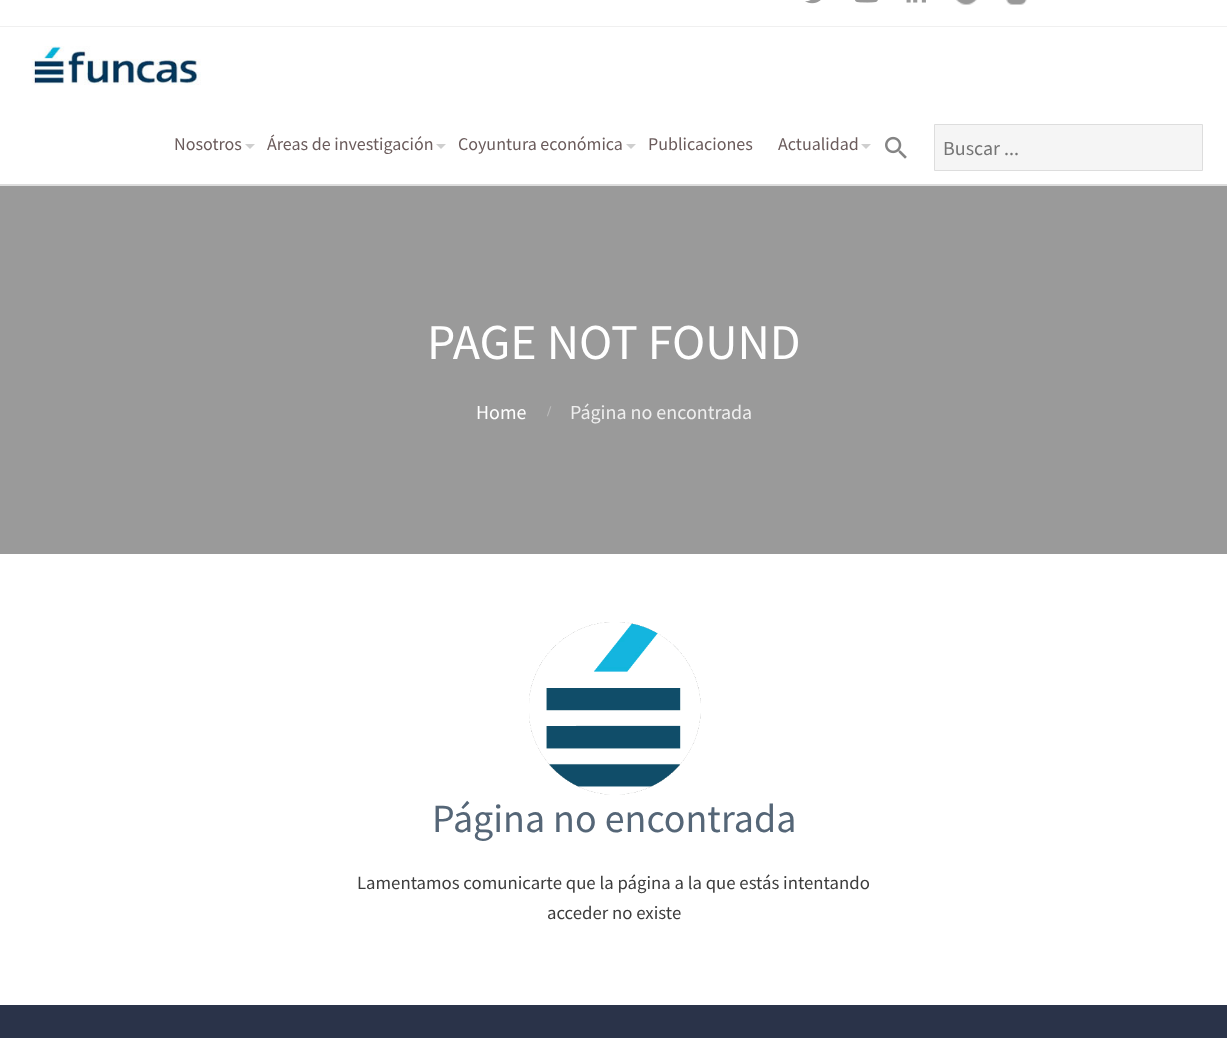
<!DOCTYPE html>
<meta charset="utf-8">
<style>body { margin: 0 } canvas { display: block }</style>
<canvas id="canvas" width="1227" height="1038"></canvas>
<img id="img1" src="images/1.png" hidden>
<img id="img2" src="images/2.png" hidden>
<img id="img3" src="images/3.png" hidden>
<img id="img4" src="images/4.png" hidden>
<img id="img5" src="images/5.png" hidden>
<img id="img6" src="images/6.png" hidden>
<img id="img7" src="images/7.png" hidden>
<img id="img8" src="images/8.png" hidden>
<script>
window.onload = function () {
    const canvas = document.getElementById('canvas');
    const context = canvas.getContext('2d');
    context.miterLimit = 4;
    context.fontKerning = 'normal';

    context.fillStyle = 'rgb(255, 255, 255)';
    context.fillRect(0, 0, 1227, 1038);
    context.fillStyle = 'rgb(240, 240, 240)';
    context.fillRect(0, 26, 1227, 1);
    context.drawImage(document.getElementById('img1'), 805, 0, 16, 4);
    context.drawImage(document.getElementById('img2'), 855, 0, 23, 3);
    context.drawImage(document.getElementById('img3'), 906, 0, 20, 3);
    context.drawImage(document.getElementById('img4'), 956, 0, 21, 5);
    context.drawImage(document.getElementById('img5'), 1006, 0, 21, 5);
    context.fillStyle = 'rgb(221, 221, 221)';
    context.fillRect(0, 184, 1227, 2);
    context.drawImage(document.getElementById('img6'), 31, 46, 170, 39);
    context.fillStyle = 'rgb(207, 207, 207)';
    context.beginPath();
    context.moveTo(245, 144);
    context.lineTo(255, 144);
    context.lineTo(250, 149);
    context.closePath();
    context.fill();
    context.beginPath();
    context.moveTo(436, 144);
    context.lineTo(446, 144);
    context.lineTo(441, 149);
    context.closePath();
    context.fill();
    context.beginPath();
    context.moveTo(626, 144);
    context.lineTo(636, 144);
    context.lineTo(631, 149);
    context.closePath();
    context.fill();
    context.beginPath();
    context.moveTo(861, 144);
    context.lineTo(871, 144);
    context.lineTo(866, 149);
    context.closePath();
    context.fill();
    context.drawImage(document.getElementById('img7'), 885, 136, 22, 23);
    context.fillStyle = 'rgb(245, 245, 245)';
    context.beginPath();
    context.rect(934.5, 124.5, 268, 46);
    context.fill();
    context.strokeStyle = 'rgb(221, 221, 221)';
    context.stroke();
    context.fillStyle = 'rgb(154, 154, 154)';
    context.fillRect(0, 186, 1227, 368);
    context.drawImage(document.getElementById('img8'), 529, 622, 172, 173);
    context.fillStyle = 'rgb(42, 51, 73)';
    context.fillRect(0, 1005, 1227, 33);
    context.font = '18px Source Sans Pro';
    context.fillStyle = 'rgb(107, 92, 92)';
    context.fillText('Nosotros', 174, 150);
    context.fillText('Áreas de investigación', 267, 150);
    context.fillText('Coyuntura económica', 458, 150);
    context.fillText('Publicaciones', 648, 150);
    context.fillText('Actualidad', 778, 150);
    context.font = '20px Source Sans Pro';
    context.fillStyle = 'rgb(117, 117, 117)';
    context.fillText('Buscar ...', 943, 155);
    context.font = '50px Source Sans Pro';
    context.fillStyle = 'rgb(255, 255, 255)';
    context.fillText('PAGE NOT FOUND', 427, 359);
    context.font = '20px Source Sans Pro';
    context.fillText('Home', 476, 419);
    context.font = 'bold 15px Liberation Serif';
    context.fillStyle = 'rgb(188, 188, 188)';
    context.fillText('/', 547, 416);
    context.font = '20px Source Sans Pro';
    context.fillStyle = 'rgb(238, 238, 238)';
    context.fillText('Página no encontrada', 570, 419);
    context.font = '40px Source Sans Pro';
    context.fillStyle = 'rgb(85, 102, 119)';
    context.fillText('Página no encontrada', 432, 832);
    context.font = '18.75px Source Sans Pro';
    context.fillStyle = 'rgb(61, 61, 61)';
    context.fillText('Lamentamos comunicarte que la página a la que estás intentando', 357, 889);
    context.fillText('acceder no existe', 547, 919);
};
</script>
